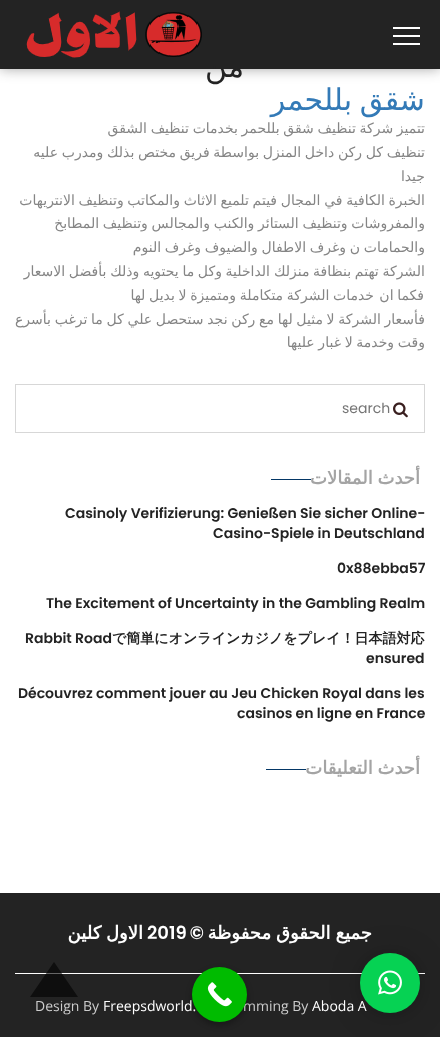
<!DOCTYPE html>
<meta charset="utf-8">
<style>body { margin: 0 } canvas { display: block }</style>
<canvas id="canvas" width="440" height="1037"></canvas>
<img id="img1" src="images/1.png" hidden>
<img id="img2" src="images/2.png" hidden>
<img id="img3" src="images/3.png" hidden>
<img id="img4" src="images/4.png" hidden>
<script>
window.onload = function () {
    const canvas = document.getElementById('canvas');
    const context = canvas.getContext('2d');
    context.miterLimit = 4;
    context.fontKerning = 'normal';

    context.fillStyle = 'rgb(255, 255, 255)';
    context.fillRect(0, 0, 440, 1037);
    context.fillStyle = 'rgba(31, 31, 31, 0.4)';
    context.filter = 'blur(6.5px)';
    context.beginPath();
    context.rect(0, 0, 440, 69);
    context.fill();
    context.filter = 'none';
    context.fillStyle = 'rgb(35, 35, 35)';
    context.fillRect(0, 0, 440, 69);
    context.fillStyle = 'rgb(255, 255, 255)';
    context.fillRect(393, 27, 27, 2);
    context.fillRect(393, 35, 27, 2);
    context.fillRect(393, 43, 27, 2);
    context.drawImage(document.getElementById('img1'), 26, 11, 176, 47);
    context.strokeStyle = 'rgb(215, 215, 215)';
    context.strokeRect(15.5, 384.5, 409, 48);
    context.drawImage(document.getElementById('img2'), 393, 402, 15, 16);
    context.fillStyle = 'rgb(4, 55, 102)';
    context.fillRect(271, 479, 40, 1);
    context.fillRect(266, 769, 40, 1);
    context.fillStyle = 'rgb(35, 35, 35)';
    context.fillRect(0, 893, 440, 144);
    context.fillStyle = 'rgb(255, 255, 255)';
    context.fillRect(15, 973, 410, 1);
    context.fillStyle = 'rgba(0, 0, 0, 0.16)';
    context.filter = 'blur(16px)';
    context.beginPath();
    context.roundRect(360, 955, 60, 60, 30);
    context.fill();
    context.filter = 'none';
    context.fillStyle = 'rgba(0, 0, 0, 0.06)';
    context.filter = 'blur(3px)';
    context.beginPath();
    context.roundRect(360, 954, 60, 60, 30);
    context.fill();
    context.filter = 'none';
    context.fillStyle = 'rgba(0, 0, 0, 0.3)';
    context.filter = 'blur(3px)';
    context.beginPath();
    context.roundRect(192, 970, 55, 55, 27.5);
    context.fill();
    context.filter = 'none';
    context.fillStyle = 'rgba(0, 0, 0, 0.6)';
    context.beginPath();
    context.moveTo(78, 997);
    context.lineTo(30, 997);
    context.lineTo(54, 962);
    context.closePath();
    context.fill();
    context.direction = 'rtl';
    context.font = '30px DejaVu Sans';
    context.fillStyle = 'rgb(35, 35, 35)';
    context.fillText('من', 244, 77);
    context.wordSpacing = '-2px';
    context.fillStyle = 'rgb(51, 122, 183)';
    context.fillText('شقق بللحمر', 425, 110);
    context.wordSpacing = '-0.75px';
    context.font = '14px DejaVu Sans';
    context.fillStyle = 'rgb(133, 133, 133)';
    context.fillText('تتميز شركة تنظيف شقق بللحمر بخدمات تنظيف الشقق', 425, 133);
    context.fillText('تنظيف كل ركن داخل المنزل بواسطة فريق مختص بذلك ومدرب عليه', 425, 157);
    context.wordSpacing = '0px';
    context.fillText('جيدا', 425, 181);
    context.wordSpacing = '-0.75px';
    context.fillText('الخبرة الكافية في المجال فيتم تلميع الاثاث والمكاتب وتنظيف الانتريهات', 425, 205);
    context.fillText('والمفروشات وتنظيف الستائر والكنب والمجالس وتنظيف المطابخ', 425, 228);
    context.fillText('والحمامات ن وغرف الاطفال والضيوف وغرف النوم', 425, 252);
    context.fillText('الشركة تهتم بنظافة منزلك', 425, 276);
    context.fillText('الداخلية وكل ما يحتويه وذلك بأفضل الاسعار', 270, 276);
    context.fillText('فكما ان', 424, 300);
    context.fillText('خدمات الشركة متكاملة ومتميزة لا بديل لها', 374, 300);
    context.fillText('فأسعار الشركة لا مثيل لها مع ركن نجد ستحصل علي كل ما ترغب بأسرع', 425, 324);
    context.fillText('وقت وخدمة لا غبار عليها', 425, 347);
    context.wordSpacing = '0px';
    context.direction = 'ltr';
    context.font = '14px Poppins';
    context.fillStyle = 'rgb(117, 117, 117)';
    context.fillText('search', 342, 413);
    context.wordSpacing = '-1px';
    context.direction = 'rtl';
    context.font = 'bold 18px DejaVu Sans';
    context.fillStyle = 'rgb(164, 164, 164)';
    context.fillText('أحدث المقالات', 420, 484);
    context.wordSpacing = '0px';
    context.direction = 'ltr';
    context.font = '600 14px Poppins';
    context.fillStyle = 'rgb(35, 35, 35)';
    context.fillText('Casinoly Verifizierung: Genießen Sie sicher Online-', 65, 518);
    context.fillText('Casino-Spiele in Deutschland', 213, 538);
    context.fillText('0x88ebba57', 337, 573);
    context.fillText('The Excitement of Uncertainty in the Gambling Realm', 46, 608);
    context.font = 'bold 14px WenQuanYi Zen Hei';
    context.fillText('で簡単にオンラインカジノをプレイ！日本語対応', 112, 643);
    context.font = '600 14px Poppins';
    context.fillText('Rabbit Road', 25, 643);
    context.fillText('ensured', 366, 663);
    context.fillText('Découvrez comment jouer au Jeu Chicken Royal dans les', 18, 698);
    context.fillText('casinos en ligne en France', 237, 718);
    context.wordSpacing = '-1px';
    context.direction = 'rtl';
    context.font = 'bold 18px DejaVu Sans';
    context.fillStyle = 'rgb(164, 164, 164)';
    context.fillText('أحدث التعليقات', 420, 774);
    context.wordSpacing = '-0.75px';
    context.fillStyle = 'rgb(255, 255, 255)';
    context.fillText('جميع الحقوق محفوظة', 372, 939);
    context.wordSpacing = '0px';
    context.font = '600 18px Poppins';
    context.fillText('©', 204, 939);
    context.direction = 'ltr';
    context.fillText('2019', 147, 939);
    context.wordSpacing = '-1px';
    context.direction = 'rtl';
    context.font = 'bold 18px DejaVu Sans';
    context.fillText('الاول كلين', 143, 939);
    context.wordSpacing = '0px';
    context.direction = 'ltr';
    context.font = '14px Open Sans';
    context.fillText('Aboda A', 312, 1011);
    context.fillStyle = 'rgb(6, 210, 83)';
    context.beginPath();
    context.arc(390, 983, 30, 0, 2 * Math.PI);
    context.fill();
    context.drawImage(document.getElementById('img3'), 378, 970, 24, 25);
    context.fillStyle = 'rgb(205, 205, 205)';
    context.fillText('mming By', 243, 1011);
    context.fillStyle = 'rgb(255, 255, 255)';
    context.fillText('Freepsdworld.', 103, 1011);
    context.fillStyle = 'rgb(205, 205, 205)';
    context.fillText('Design By', 35, 1011);
    context.fillStyle = 'rgb(0, 187, 0)';
    context.beginPath();
    context.arc(219.5, 994.5, 27.5, 0, 2 * Math.PI);
    context.fill();
    context.drawImage(document.getElementById('img4'), 207, 982, 25, 25);
};
</script>
